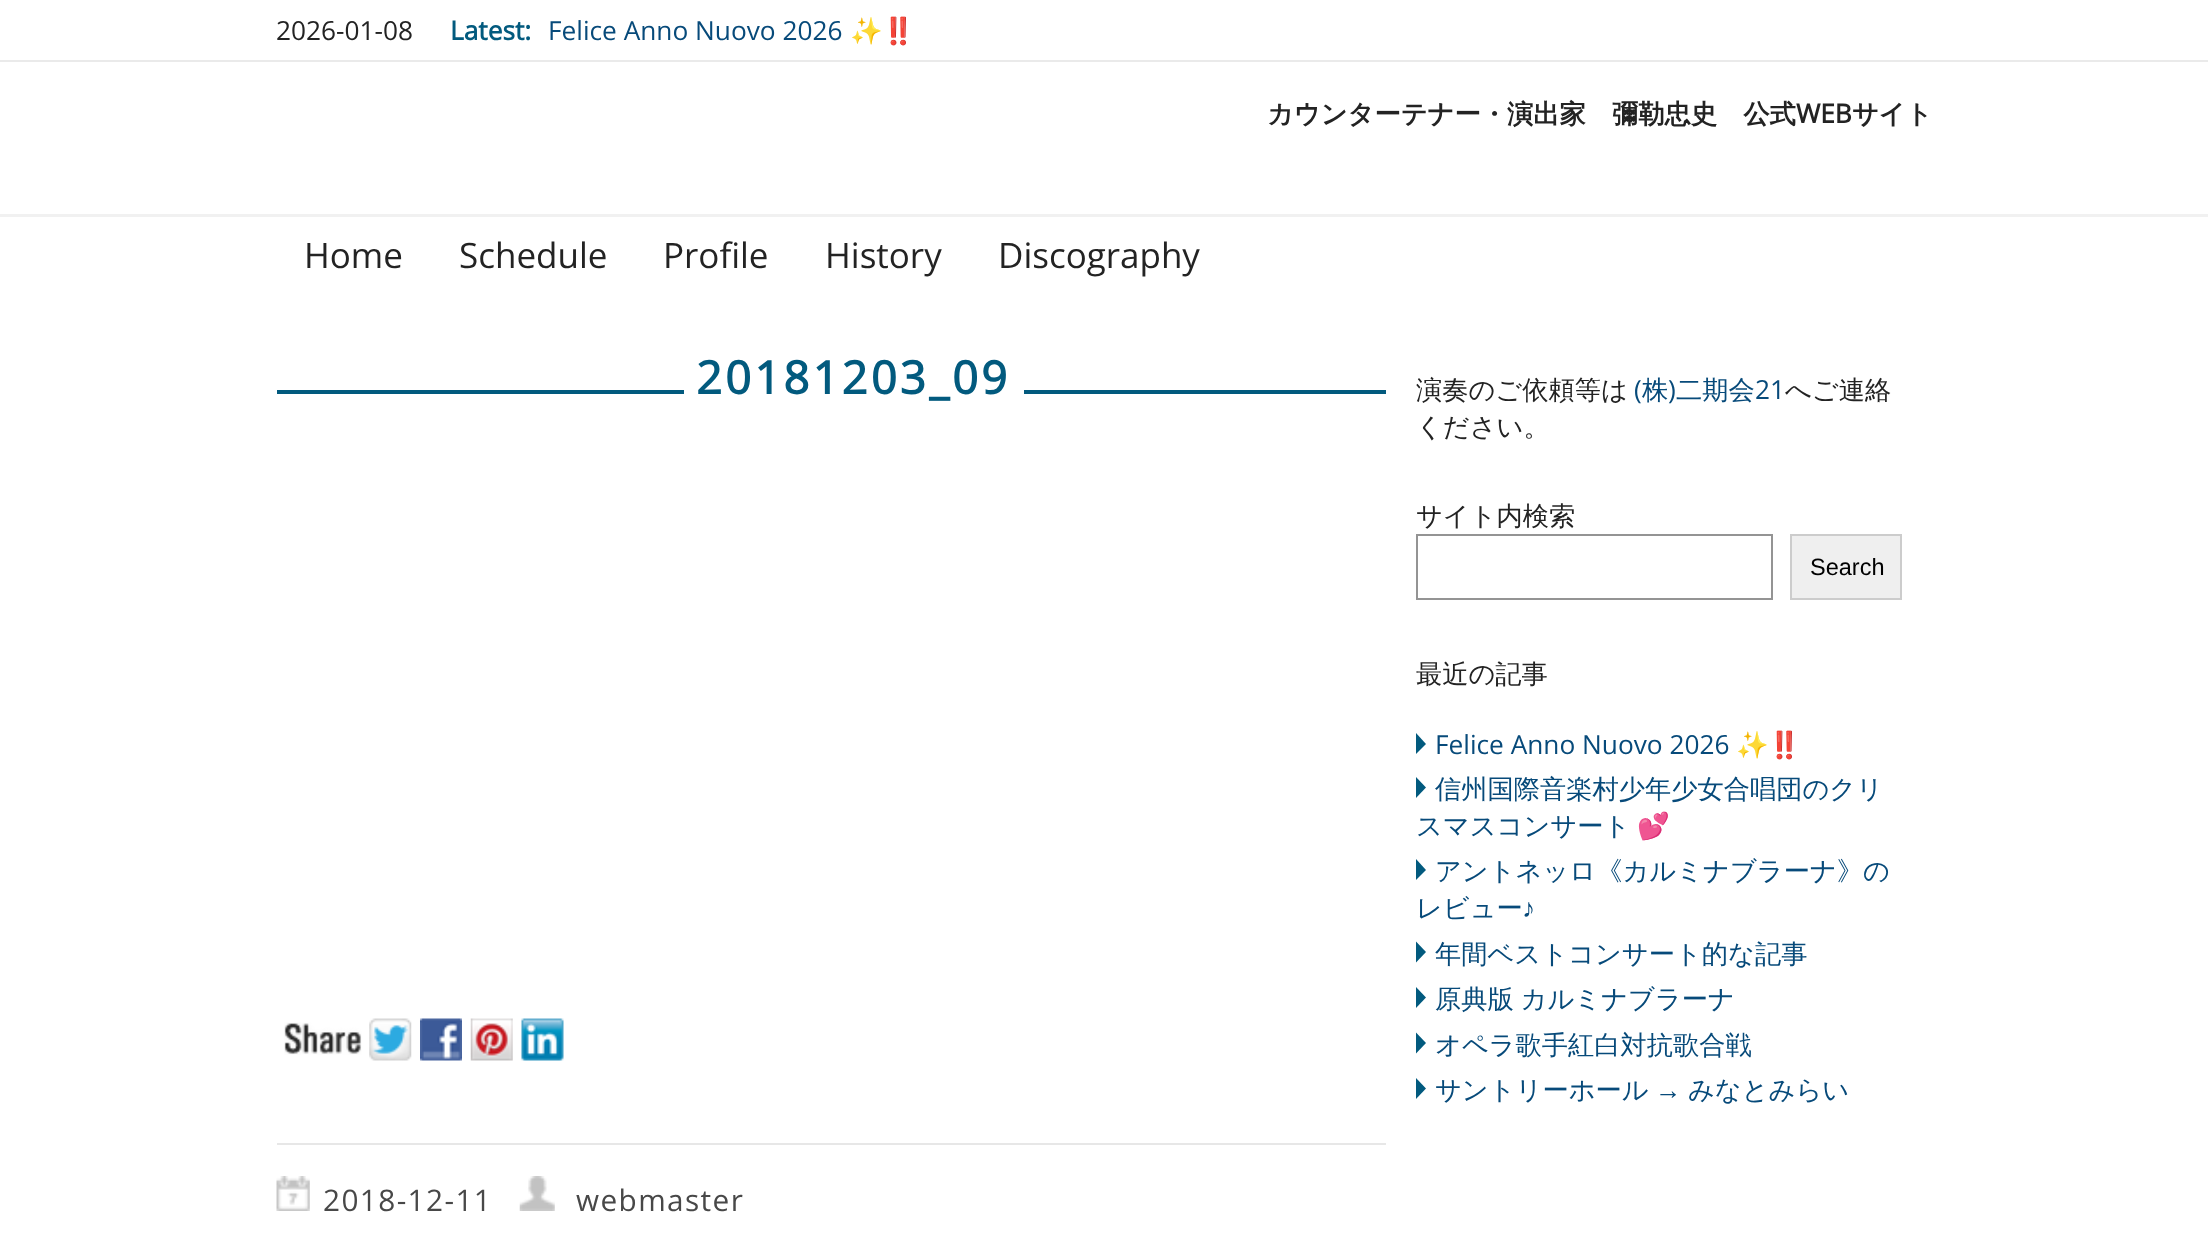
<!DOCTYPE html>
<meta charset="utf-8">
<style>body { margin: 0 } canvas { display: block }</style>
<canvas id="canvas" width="2208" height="1243"></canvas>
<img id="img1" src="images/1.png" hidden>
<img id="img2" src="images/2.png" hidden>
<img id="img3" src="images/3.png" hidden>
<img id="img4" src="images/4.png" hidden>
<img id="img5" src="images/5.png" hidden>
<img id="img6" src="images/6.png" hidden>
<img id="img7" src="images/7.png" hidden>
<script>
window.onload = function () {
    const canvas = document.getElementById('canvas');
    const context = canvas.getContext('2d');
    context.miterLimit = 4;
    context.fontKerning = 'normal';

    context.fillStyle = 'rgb(255, 255, 255)';
    context.fillRect(0, 0, 2208, 1243);
    context.fillStyle = 'rgb(234, 234, 234)';
    context.fillRect(0, 60, 2208, 2);
    context.fillStyle = 'rgb(241, 241, 241)';
    context.fillRect(0, 214, 2208, 3);
    context.fillStyle = 'rgb(2, 90, 126)';
    context.fillRect(277, 390, 1109, 4);
    context.fillStyle = 'rgb(255, 255, 255)';
    context.fillRect(684, 390, 340, 4);
    context.drawImage(document.getElementById('img1'), 284, 1022, 78, 33);
    context.drawImage(document.getElementById('img2'), 369, 1018, 43, 43);
    context.drawImage(document.getElementById('img3'), 420, 1018, 42, 43);
    context.drawImage(document.getElementById('img4'), 470, 1018, 43, 43);
    context.drawImage(document.getElementById('img5'), 521, 1018, 43, 43);
    context.fillStyle = 'rgb(231, 231, 231)';
    context.fillRect(277, 1143, 1109, 2);
    context.drawImage(document.getElementById('img6'), 276, 1176, 34, 35);
    context.drawImage(document.getElementById('img7'), 519, 1176, 36, 35);
    context.strokeStyle = 'rgb(148, 148, 148)';
    context.lineWidth = 2;
    context.strokeRect(1417, 535, 355, 64);
    context.fillStyle = 'rgb(239, 239, 239)';
    context.beginPath();
    context.rect(1791, 535, 110, 64);
    context.fill();
    context.strokeStyle = 'rgb(204, 204, 204)';
    context.stroke();
    context.fillStyle = 'rgb(2, 90, 126)';
    context.beginPath();
    context.moveTo(1416, 754);
    context.lineTo(1416, 733);
    context.lineTo(1426, 744);
    context.closePath();
    context.fill();
    context.beginPath();
    context.moveTo(1416, 798);
    context.lineTo(1416, 777);
    context.lineTo(1426, 787.5);
    context.closePath();
    context.fill();
    context.beginPath();
    context.moveTo(1416, 880);
    context.lineTo(1416, 859);
    context.lineTo(1426, 870);
    context.closePath();
    context.fill();
    context.beginPath();
    context.moveTo(1416, 962.5);
    context.lineTo(1416, 941.5);
    context.lineTo(1426, 952);
    context.closePath();
    context.fill();
    context.beginPath();
    context.moveTo(1416, 1008);
    context.lineTo(1416, 987);
    context.lineTo(1426, 997.5);
    context.closePath();
    context.fill();
    context.beginPath();
    context.moveTo(1416, 1053.5);
    context.lineTo(1416, 1032.5);
    context.lineTo(1426, 1043);
    context.closePath();
    context.fill();
    context.beginPath();
    context.moveTo(1416, 1099);
    context.lineTo(1416, 1078);
    context.lineTo(1426, 1088.5);
    context.closePath();
    context.fill();
    context.font = '26.25px Open Sans';
    context.fillStyle = 'rgb(35, 35, 35)';
    context.fillText('2026-01-08', 276, 40);
    context.font = 'bold 26.25px Open Sans';
    context.fillStyle = 'rgb(2, 90, 126)';
    context.fillText('Latest:', 450, 40);
    context.font = '26.25px Open Sans';
    context.fillStyle = 'rgb(7, 74, 122)';
    context.fillText('Felice Anno Nuovo 2026', 548, 40);
    context.font = '26.25px Noto Color Emoji';
    context.fillText('✨‼️', 850, 40);
    context.font = 'bold 26.25px WenQuanYi Zen Hei';
    context.fillStyle = 'rgb(35, 35, 35)';
    context.fillText('カウンターテナー・演出家　彌勒忠史　公式', 1267, 123);
    context.font = 'bold 26.25px Open Sans';
    context.fillText('WEB', 1796, 123);
    context.font = 'bold 26.25px WenQuanYi Zen Hei';
    context.fillText('サイト', 1852, 123);
    context.font = '35px Open Sans';
    context.fillText('Home', 304, 268);
    context.fillText('Schedule', 459, 268);
    context.fillText('Profile', 663, 268);
    context.fillText('History', 825, 268);
    context.fillText('Discography', 998, 268);
    context.letterSpacing = '3.1px';
    context.font = 'bold 45.5px Open Sans';
    context.fillStyle = 'rgb(2, 90, 126)';
    context.fillText('20181203_09', 696, 394);
    context.letterSpacing = '1.4px';
    context.font = '29.75px Open Sans';
    context.fillStyle = 'rgb(72, 72, 72)';
    context.fillText('2018-12-11', 323, 1211);
    context.fillText('webmaster', 576, 1211);
    context.letterSpacing = '0px';
    context.font = '500 26.25px WenQuanYi Zen Hei';
    context.fillStyle = 'rgb(35, 35, 35)';
    context.fillText('演奏のご依頼等は', 1416, 399);
    context.font = '26.25px Open Sans';
    context.fillStyle = 'rgb(7, 74, 122)';
    context.fillText('(', 1634, 399);
    context.font = '500 26.25px WenQuanYi Zen Hei';
    context.fillText('株 二期会', 1642, 399);
    context.fillStyle = 'rgb(35, 35, 35)';
    context.fillText('へご連絡', 1785, 399);
    context.font = '26.25px Open Sans';
    context.fillStyle = 'rgb(7, 74, 122)';
    context.fillText(')', 1668, 399);
    context.fillText('21', 1755, 399);
    context.font = '500 26.25px WenQuanYi Zen Hei';
    context.fillStyle = 'rgb(35, 35, 35)';
    context.fillText('ください。', 1416, 436);
    context.fillText('サイト内検索', 1416, 525);
    context.font = '23.5px Liberation Sans';
    context.fillStyle = 'rgb(0, 0, 0)';
    context.fillText('Search', 1810, 575);
    context.font = '500 26.25px WenQuanYi Zen Hei';
    context.fillStyle = 'rgb(35, 35, 35)';
    context.fillText('最近の記事', 1416, 683);
    context.font = '26.25px Open Sans';
    context.fillStyle = 'rgb(7, 74, 122)';
    context.fillText('Felice Anno Nuovo 2026', 1435, 754);
    context.font = '26.25px Noto Color Emoji';
    context.fillText('✨‼️', 1736, 754);
    context.font = '500 26.25px WenQuanYi Zen Hei';
    context.fillText('信州国際音楽村少年少女合唱団のクリ', 1435, 798);
    context.fillText('スマスコンサート', 1416, 835);
    context.font = '26.25px Noto Color Emoji';
    context.fillText('💕', 1637, 835);
    context.font = '500 26.25px WenQuanYi Zen Hei';
    context.fillText('アントネッロ《カルミナブラーナ》の', 1435, 880);
    context.fillText('レビュー', 1416, 917);
    context.font = '26.25px Liberation Sans';
    context.fillText('♪', 1522, 917);
    context.font = '500 26.25px WenQuanYi Zen Hei';
    context.fillText('年間ベストコンサート的な記事', 1435, 963);
    context.wordSpacing = '-1px';
    context.fillText('原典版 カルミナブラーナ', 1435, 1008);
    context.wordSpacing = '0px';
    context.fillText('オペラ歌手紅白対抗歌合戦', 1435, 1054);
    context.fillText('サントリーホール', 1435, 1099);
    context.font = '26.25px Liberation Sans';
    context.fillText('→', 1655, 1099);
    context.font = '500 26.25px WenQuanYi Zen Hei';
    context.fillText('みなとみらい', 1688, 1099);
};
</script>
